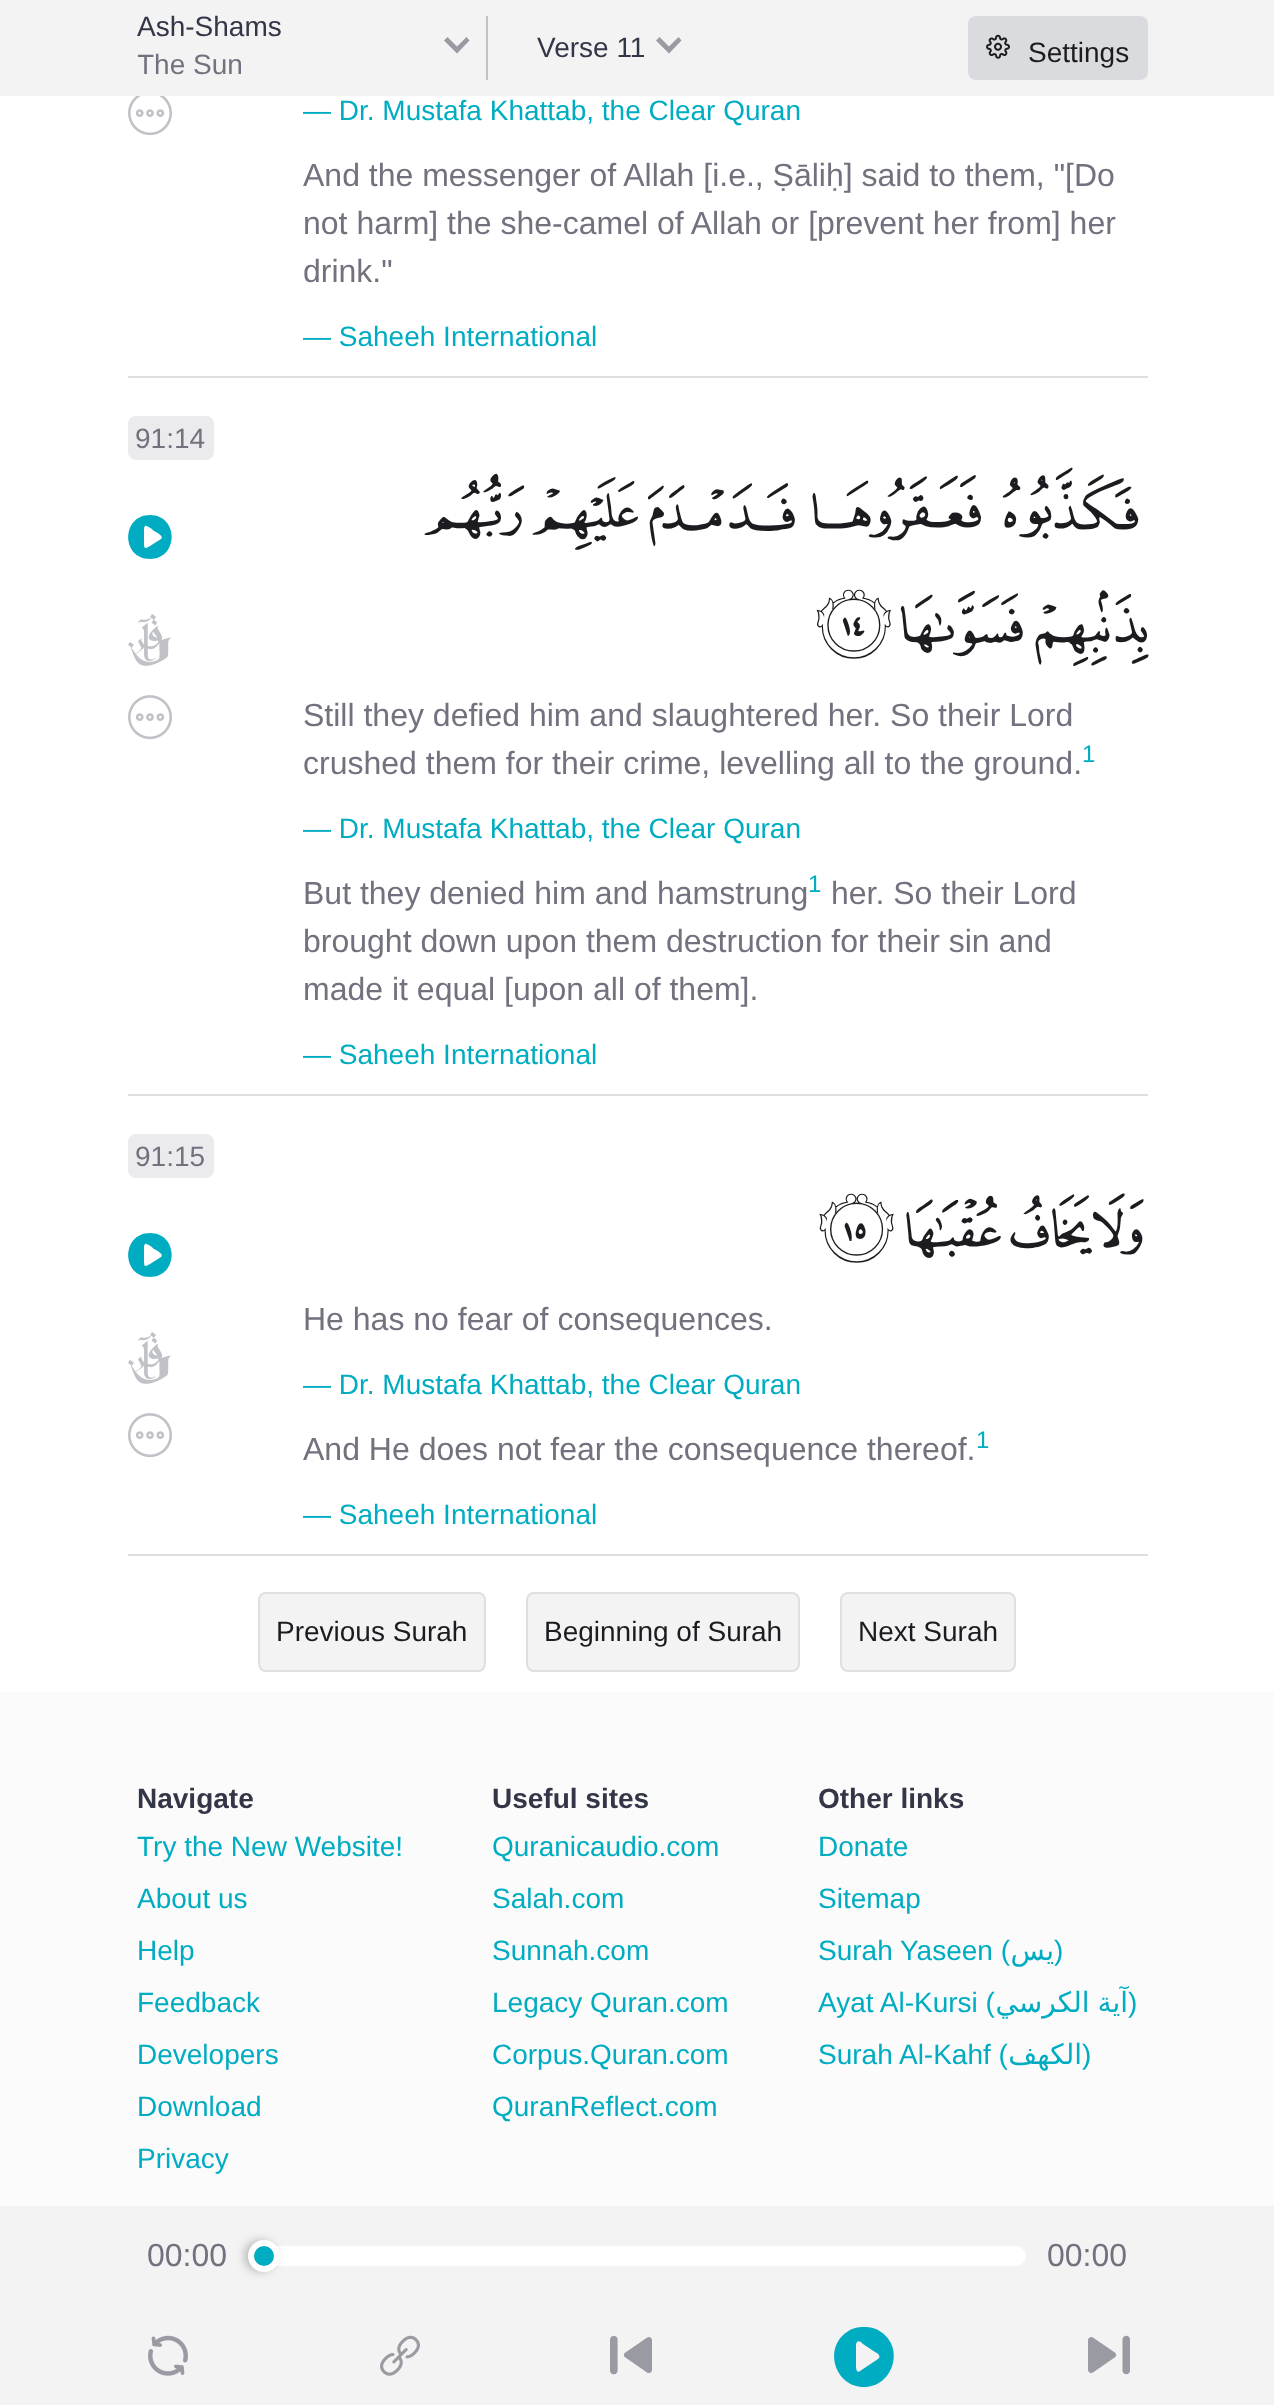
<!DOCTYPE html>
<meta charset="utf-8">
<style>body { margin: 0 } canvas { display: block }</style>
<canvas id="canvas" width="1274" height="2405"></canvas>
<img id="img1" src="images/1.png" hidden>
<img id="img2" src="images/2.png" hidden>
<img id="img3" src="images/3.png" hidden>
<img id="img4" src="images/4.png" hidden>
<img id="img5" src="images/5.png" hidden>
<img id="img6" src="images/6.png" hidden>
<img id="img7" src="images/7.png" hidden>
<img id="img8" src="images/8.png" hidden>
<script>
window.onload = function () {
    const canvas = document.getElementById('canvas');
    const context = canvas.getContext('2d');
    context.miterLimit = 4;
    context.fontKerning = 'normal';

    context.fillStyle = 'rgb(255, 255, 255)';
    context.fillRect(0, 0, 1274, 2405);
    context.fillStyle = 'rgb(243, 243, 244)';
    context.fillRect(0, 0, 1274, 96);
    context.fillStyle = 'rgb(153, 154, 162)';
    context.beginPath();
    context.moveTo(466.5, 37);
    context.lineTo(469.5, 40.5);
    context.lineTo(457, 53.5);
    context.lineTo(444, 40.5);
    context.lineTo(447.5, 37);
    context.lineTo(457, 46.5);
    context.closePath();
    context.fill();
    context.fillStyle = 'rgb(193, 194, 199)';
    context.fillRect(486, 16, 2, 64);
    context.fillStyle = 'rgb(153, 154, 162)';
    context.beginPath();
    context.moveTo(678.5, 37);
    context.lineTo(681.5, 40.5);
    context.lineTo(669, 53.5);
    context.lineTo(656, 40.5);
    context.lineTo(659.5, 37);
    context.lineTo(669, 46.5);
    context.closePath();
    context.fill();
    context.fillStyle = 'rgb(218, 219, 222)';
    context.beginPath();
    context.roundRect(968, 16, 180, 64, 8);
    context.fill();
    context.drawImage(document.getElementById('img1'), 986, 34, 24, 25);
    context.drawImage(document.getElementById('img2'), 128, 96, 44, 40);
    context.fillStyle = 'rgb(223, 223, 224)';
    context.fillRect(128, 376, 1020, 2);
    context.fillStyle = 'rgb(235, 235, 237)';
    context.beginPath();
    context.roundRect(128, 416, 86, 44, 8);
    context.fill();
    context.fillStyle = 'rgb(0, 172, 194)';
    context.beginPath();
    context.moveTo(150, 515);
    context.bezierCurveTo(121, 515, 121, 559, 150, 559);
    context.bezierCurveTo(179, 559, 179, 515, 150, 515);
    context.closePath();
    context.moveTo(161, 539);
    context.lineTo(150, 546);
    context.bezierCurveTo(145, 549, 144, 549, 144, 543);
    context.lineTo(144, 528);
    context.lineTo(145, 526);
    context.bezierCurveTo(147, 525, 153, 530, 154, 531);
    context.bezierCurveTo(154, 531, 165, 536, 161, 539);
    context.closePath();
    context.fill();
    context.drawImage(document.getElementById('img3'), 128, 614, 43, 52);
    context.drawImage(document.getElementById('img4'), 128, 695, 44, 45);
    context.fillStyle = 'rgb(223, 223, 224)';
    context.fillRect(128, 1094, 1020, 2);
    context.fillStyle = 'rgb(235, 235, 237)';
    context.beginPath();
    context.roundRect(128, 1134, 86, 44, 8);
    context.fill();
    context.fillStyle = 'rgb(0, 172, 194)';
    context.beginPath();
    context.moveTo(150, 1233);
    context.bezierCurveTo(121, 1233, 121, 1277, 150, 1277);
    context.bezierCurveTo(179, 1277, 179, 1233, 150, 1233);
    context.closePath();
    context.moveTo(161, 1257);
    context.lineTo(150, 1264);
    context.bezierCurveTo(145, 1267, 144, 1267, 144, 1261);
    context.lineTo(144, 1246);
    context.lineTo(145, 1244);
    context.bezierCurveTo(147, 1243, 153, 1248, 154, 1249);
    context.bezierCurveTo(154, 1249, 165, 1254, 161, 1257);
    context.closePath();
    context.fill();
    context.drawImage(document.getElementById('img3'), 128, 1332, 43, 52);
    context.drawImage(document.getElementById('img4'), 128, 1413, 44, 45);
    context.fillStyle = 'rgb(223, 223, 224)';
    context.fillRect(128, 1554, 1020, 2);
    context.fillStyle = 'rgb(243, 243, 244)';
    context.beginPath();
    context.roundRect(259, 1593, 226, 78, 7);
    context.fill();
    context.strokeStyle = 'rgb(223, 223, 224)';
    context.lineWidth = 2;
    context.stroke();
    context.beginPath();
    context.roundRect(527, 1593, 272, 78, 7);
    context.fill();
    context.stroke();
    context.beginPath();
    context.roundRect(841, 1593, 174, 78, 7);
    context.fill();
    context.stroke();
    context.fillRect(0, 2206, 1274, 199);
    context.fillStyle = 'rgb(255, 255, 255)';
    context.beginPath();
    context.roundRect(248, 2246, 778, 20, 10);
    context.fill();
    context.fillStyle = 'rgba(131, 131, 131, 0.5)';
    context.filter = 'blur(4px)';
    context.beginPath();
    context.roundRect(244, 2240, 32, 32, 16);
    context.fill();
    context.filter = 'none';
    context.fillStyle = 'rgb(0, 172, 194)';
    context.beginPath();
    context.arc(264, 2256, 13, 0, 2 * Math.PI);
    context.fill();
    context.strokeStyle = 'rgb(255, 255, 255)';
    context.lineWidth = 6;
    context.stroke();
    context.drawImage(document.getElementById('img5'), 148, 2335, 40, 41);
    context.drawImage(document.getElementById('img6'), 380, 2335, 40, 41);
    context.drawImage(document.getElementById('img7'), 610, 2335, 42, 40);
    context.beginPath();
    context.moveTo(864, 2327);
    context.bezierCurveTo(858, 2327, 852, 2328, 847, 2332);
    context.bezierCurveTo(823, 2348, 835, 2387, 864, 2387);
    context.bezierCurveTo(893, 2387, 905, 2348, 881, 2332);
    context.bezierCurveTo(876, 2328, 870, 2327, 864, 2327);
    context.closePath();
    context.moveTo(878, 2359);
    context.lineTo(863, 2369);
    context.bezierCurveTo(858, 2373, 856, 2373, 856, 2365);
    context.lineTo(856, 2344);
    context.lineTo(857, 2342);
    context.bezierCurveTo(859, 2340, 862, 2343, 863, 2344);
    context.lineTo(875, 2352);
    context.bezierCurveTo(877, 2353, 882, 2356, 878, 2359);
    context.closePath();
    context.fill();
    context.drawImage(document.getElementById('img8'), 1088, 2335, 42, 40);
    context.fillStyle = 'rgb(251, 251, 251)';
    context.fillRect(0, 1692, 1274, 514);
    context.font = '28px Liberation Sans';
    context.fillStyle = 'rgb(51, 54, 71)';
    context.fillText('Ash-Shams', 137, 36);
    context.save();
    context.beginPath();
    context.rect(138, 44, 144, 42);
    context.clip();
    context.fillStyle = 'rgb(113, 114, 126)';
    context.fillText('The Sun', 137, 74);
    context.restore();
    context.fillText('Verse 11', 537, 57);
    context.fillStyle = 'rgb(28, 28, 32)';
    context.fillText('Settings', 1028, 62);
    context.fillStyle = 'rgb(0, 172, 194)';
    context.fillText('— Dr. Mustafa Khattab, the Clear Quran', 303, 120);
    context.font = '32px Liberation Sans';
    context.fillStyle = 'rgb(113, 114, 126)';
    context.fillText('And the messenger of Allah [i.e., Ṣāliḥ] said to them, "[Do', 303, 186);
    context.fillText('not harm] the she-camel of Allah or [prevent her from] her', 303, 234);
    context.fillText('drink."', 303, 282);
    context.font = '28px Liberation Sans';
    context.fillStyle = 'rgb(0, 172, 194)';
    context.fillText('— Saheeh International', 303, 346);
    context.fillStyle = 'rgb(113, 114, 126)';
    context.fillText('91:14', 135, 448);
    context.direction = 'rtl';
    context.font = '60px "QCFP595"';
    context.fillStyle = 'rgb(28, 28, 32)';
    context.fillText('ﮎ', 522, 528);
    context.fillText('ﮍ', 638, 528);
    context.fillText('ﮌ', 795, 528);
    context.fillText('ﮋ', 981, 528);
    context.fillText('ﮊ', 1147, 528);
    context.fillText('ﮑ', 891, 642);
    context.fillText('ﮐ', 1023, 642);
    context.fillText('ﮏ', 1147, 642);
    context.direction = 'ltr';
    context.font = '32px Liberation Sans';
    context.fillStyle = 'rgb(113, 114, 126)';
    context.fillText('Still they defied him and slaughtered her. So their Lord', 303, 726);
    context.fillText('crushed them for their crime, levelling all to the ground.', 303, 774);
    context.font = '24px Liberation Sans';
    context.fillStyle = 'rgb(0, 172, 194)';
    context.fillText('1', 1082, 762);
    context.font = '28px Liberation Sans';
    context.fillText('— Dr. Mustafa Khattab, the Clear Quran', 303, 838);
    context.font = '32px Liberation Sans';
    context.fillStyle = 'rgb(113, 114, 126)';
    context.fillText('But they denied him and hamstrung', 303, 904);
    context.font = '24px Liberation Sans';
    context.fillStyle = 'rgb(0, 172, 194)';
    context.fillText('1', 808, 892);
    context.font = '32px Liberation Sans';
    context.fillStyle = 'rgb(113, 114, 126)';
    context.fillText('her. So their Lord', 831, 904);
    context.fillText('brought down upon them destruction for their sin and', 303, 952);
    context.fillText('made it equal [upon all of them].', 303, 1000);
    context.font = '28px Liberation Sans';
    context.fillStyle = 'rgb(0, 172, 194)';
    context.fillText('— Saheeh International', 303, 1064);
    context.fillStyle = 'rgb(113, 114, 126)';
    context.fillText('91:15', 135, 1166);
    context.direction = 'rtl';
    context.font = '60px "QCFP595"';
    context.fillStyle = 'rgb(28, 28, 32)';
    context.fillText('ﮕ', 894, 1246);
    context.fillText('ﮔ', 1001, 1246);
    context.fillText('ﮒ', 1147, 1246);
    context.fillText('ﮓ', 1089, 1246);
    context.direction = 'ltr';
    context.font = '32px Liberation Sans';
    context.fillStyle = 'rgb(113, 114, 126)';
    context.fillText('He has no fear of consequences.', 303, 1330);
    context.font = '28px Liberation Sans';
    context.fillStyle = 'rgb(0, 172, 194)';
    context.fillText('— Dr. Mustafa Khattab, the Clear Quran', 303, 1394);
    context.font = '32px Liberation Sans';
    context.fillStyle = 'rgb(113, 114, 126)';
    context.fillText('And He does not fear the consequence thereof.', 303, 1460);
    context.font = '24px Liberation Sans';
    context.fillStyle = 'rgb(0, 172, 194)';
    context.fillText('1', 976, 1448);
    context.font = '28px Liberation Sans';
    context.fillText('— Saheeh International', 303, 1524);
    context.fillStyle = 'rgb(28, 28, 32)';
    context.fillText('Previous Surah', 276, 1641);
    context.fillText('Beginning of Surah', 544, 1641);
    context.fillText('Next Surah', 858, 1641);
    context.font = '32px Liberation Sans';
    context.fillStyle = 'rgb(113, 114, 126)';
    context.fillText('00:00', 147, 2266);
    context.fillText('00:00', 1047, 2266);
    context.font = 'bold 28px Liberation Sans';
    context.fillStyle = 'rgb(51, 54, 71)';
    context.fillText('Navigate', 137, 1808);
    context.font = '28px Liberation Sans';
    context.fillStyle = 'rgb(0, 172, 194)';
    context.fillText('Try the New Website!', 137, 1856);
    context.fillText('About us', 137, 1908);
    context.fillText('Help', 137, 1960);
    context.fillText('Feedback', 137, 2012);
    context.fillText('Developers', 137, 2064);
    context.fillText('Download', 137, 2116);
    context.fillText('Privacy', 137, 2168);
    context.font = 'bold 28px Liberation Sans';
    context.fillStyle = 'rgb(51, 54, 71)';
    context.fillText('Useful sites', 492, 1808);
    context.font = '28px Liberation Sans';
    context.fillStyle = 'rgb(0, 172, 194)';
    context.fillText('Quranicaudio.com', 492, 1856);
    context.fillText('Salah.com', 492, 1908);
    context.fillText('Sunnah.com', 492, 1960);
    context.fillText('Legacy Quran.com', 492, 2012);
    context.fillText('Corpus.Quran.com', 492, 2064);
    context.fillText('QuranReflect.com', 492, 2116);
    context.font = 'bold 28px Liberation Sans';
    context.fillStyle = 'rgb(51, 54, 71)';
    context.fillText('Other links', 818, 1808);
    context.font = '28px Liberation Sans';
    context.fillStyle = 'rgb(0, 172, 194)';
    context.fillText('Donate', 818, 1856);
    context.fillText('Sitemap', 818, 1908);
    context.fillText('Surah Yaseen (', 818, 1960);
    context.direction = 'rtl';
    context.font = '28px DejaVu Sans';
    context.fillText('يس', 1054, 1960);
    context.direction = 'ltr';
    context.font = '28px Liberation Sans';
    context.fillText(')', 1054, 1960);
    context.fillText('Ayat Al-Kursi (', 818, 2012);
    context.wordSpacing = '-1px';
    context.direction = 'rtl';
    context.font = '28px DejaVu Sans';
    context.fillText('آية الكرسي', 1128, 2012);
    context.wordSpacing = '0px';
    context.direction = 'ltr';
    context.font = '28px Liberation Sans';
    context.fillText(')', 1128, 2012);
    context.fillText('Surah Al-Kahf (', 818, 2064);
    context.direction = 'rtl';
    context.font = '28px DejaVu Sans';
    context.fillText('الكهف', 1082, 2064);
    context.direction = 'ltr';
    context.font = '28px Liberation Sans';
    context.fillText(')', 1082, 2064);
};
</script>
